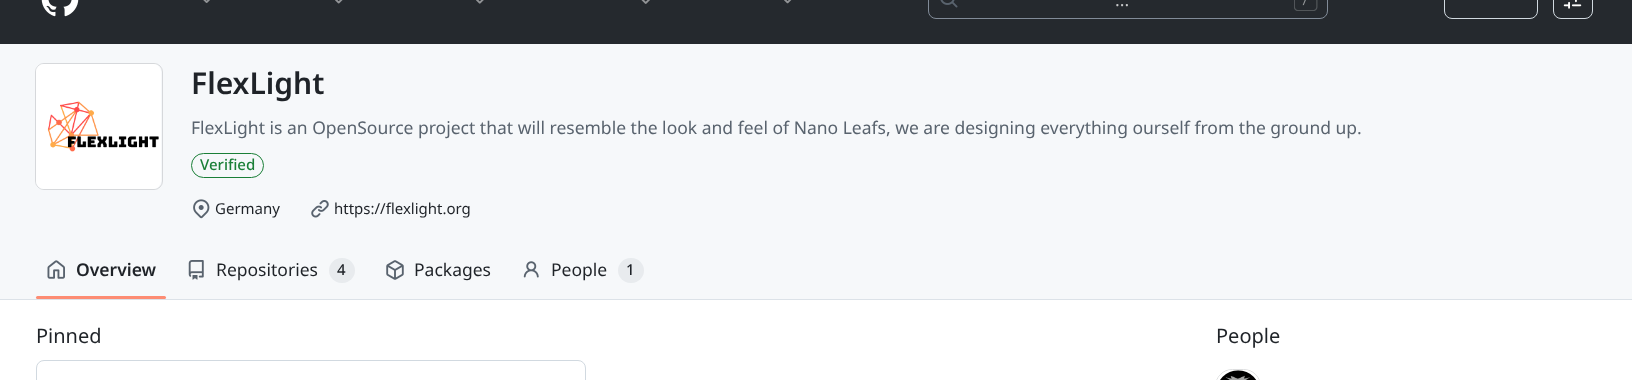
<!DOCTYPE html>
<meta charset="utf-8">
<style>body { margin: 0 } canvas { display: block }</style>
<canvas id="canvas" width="1632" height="380"></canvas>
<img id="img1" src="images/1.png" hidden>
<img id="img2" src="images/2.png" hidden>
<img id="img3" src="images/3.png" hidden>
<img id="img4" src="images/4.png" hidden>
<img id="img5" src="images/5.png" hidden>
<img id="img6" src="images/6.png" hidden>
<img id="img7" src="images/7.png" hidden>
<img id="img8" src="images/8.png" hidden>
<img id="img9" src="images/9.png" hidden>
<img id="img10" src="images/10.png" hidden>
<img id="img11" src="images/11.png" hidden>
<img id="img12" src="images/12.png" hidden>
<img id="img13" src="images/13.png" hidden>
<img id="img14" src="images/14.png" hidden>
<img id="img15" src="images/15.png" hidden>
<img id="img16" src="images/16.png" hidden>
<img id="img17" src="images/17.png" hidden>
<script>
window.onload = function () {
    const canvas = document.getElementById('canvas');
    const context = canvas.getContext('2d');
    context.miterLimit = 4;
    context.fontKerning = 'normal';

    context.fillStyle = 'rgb(255, 255, 255)';
    context.fillRect(0, 0, 1632, 380);
    context.fillStyle = 'rgb(37, 41, 46)';
    context.fillRect(0, 0, 1632, 44);
    context.drawImage(document.getElementById('img1'), 41, 0, 38, 17);
    context.drawImage(document.getElementById('img2'), 203, 0, 7, 3);
    context.drawImage(document.getElementById('img3'), 335, 0, 8, 4);
    context.drawImage(document.getElementById('img4'), 476, 0, 8, 4);
    context.drawImage(document.getElementById('img5'), 641, 0, 9, 4);
    context.drawImage(document.getElementById('img6'), 784, 0, 8, 4);
    context.beginPath();
    context.roundRect(928.5, -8.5, 399, 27, 7.5);
    context.strokeStyle = 'rgb(129, 139, 152)';
    context.stroke();
    context.drawImage(document.getElementById('img7'), 940, 0, 18, 8);
    context.drawImage(document.getElementById('img8'), 1294, 0, 24, 11);
    context.beginPath();
    context.roundRect(1444.5, -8.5, 93, 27, 7.5);
    context.strokeStyle = 'rgb(209, 217, 224)';
    context.stroke();
    context.beginPath();
    context.roundRect(1553.5, -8.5, 39, 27, 7.5);
    context.stroke();
    context.drawImage(document.getElementById('img9'), 1563, 0, 19, 9);
    context.fillStyle = 'rgb(246, 248, 250)';
    context.fillRect(0, 44, 1632, 255);
    context.beginPath();
    context.roundRect(35.5, 63.5, 127, 126, 8.5);
    context.strokeStyle = 'rgb(214, 216, 219)';
    context.stroke();
    context.fillStyle = 'rgb(255, 255, 255)';
    context.beginPath();
    context.roundRect(36, 64, 125, 125, 8);
    context.fill();
    context.drawImage(document.getElementById('img10'), 47, 101, 112, 51);
    context.beginPath();
    context.roundRect(191.5, 153.5, 72, 24, 12);
    context.strokeStyle = 'rgb(26, 127, 55)';
    context.stroke();
    context.drawImage(document.getElementById('img11'), 193, 199, 17, 20);
    context.drawImage(document.getElementById('img12'), 311, 200, 18, 18);
    context.fillStyle = 'rgb(220, 226, 232)';
    context.fillRect(0, 299, 1632, 1);
    context.drawImage(document.getElementById('img13'), 47, 260, 18, 19);
    context.fillStyle = 'rgb(253, 140, 115)';
    context.beginPath();
    context.roundRect(36, 296, 130, 3, 1.5);
    context.fill();
    context.drawImage(document.getElementById('img14'), 188, 260, 16, 20);
    context.fillStyle = 'rgb(232, 235, 238)';
    context.beginPath();
    context.roundRect(329, 258, 26, 25, 12.5);
    context.fill();
    context.drawImage(document.getElementById('img15'), 386, 260, 18, 20);
    context.drawImage(document.getElementById('img16'), 523, 261, 16, 17);
    context.beginPath();
    context.roundRect(618, 258, 26, 25, 12.5);
    context.fill();
    context.beginPath();
    context.roundRect(36.5, 360.5, 549, 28, 7.5);
    context.strokeStyle = 'rgb(209, 217, 224)';
    context.stroke();
    context.beginPath();
    context.roundRect(1215.5, 369.5, 45, 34, 22.5);
    context.strokeStyle = 'rgb(221, 222, 223)';
    context.stroke();
    context.fillStyle = 'rgb(255, 255, 255)';
    context.beginPath();
    context.roundRect(1216, 370, 44, 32, 22);
    context.fill();
    context.drawImage(document.getElementById('img17'), 1220, 370, 37, 10);
    context.font = '17.5px Noto Sans';
    context.fillStyle = 'rgb(201, 202, 203)';
    context.fillText('...', 1115, 6);
    context.font = '600 30px Noto Sans';
    context.fillStyle = 'rgb(31, 35, 40)';
    context.fillText('FlexLight', 191, 94);
    context.font = '17.5px Noto Sans';
    context.fillStyle = 'rgb(89, 99, 110)';
    context.fillText('FlexLight is an OpenSource project that will resemble the look and feel of Nano Leafs, we are designing everything ourself from the ground up.', 191, 134);
    context.font = '500 15px Noto Sans';
    context.fillStyle = 'rgb(26, 127, 55)';
    context.fillText('Verified', 200, 170);
    context.font = '15px Noto Sans';
    context.fillStyle = 'rgb(31, 35, 40)';
    context.fillText('Germany', 215, 214);
    context.fillText('https://flexlight.org', 334, 214);
    context.font = '600 17.5px Noto Sans';
    context.fillText('Overview', 76, 276);
    context.font = '17.5px Noto Sans';
    context.fillText('Repositories', 216, 276);
    context.font = '500 15px Noto Sans';
    context.fillText('4', 337, 275);
    context.font = '17.5px Noto Sans';
    context.fillText('Packages', 414, 276);
    context.fillText('People', 551, 276);
    context.font = '500 15px Noto Sans';
    context.fillText('1', 626, 275);
    context.font = '20px Noto Sans';
    context.fillText('Pinned', 36, 343);
    context.fillText('People', 1216, 343);
};
</script>
